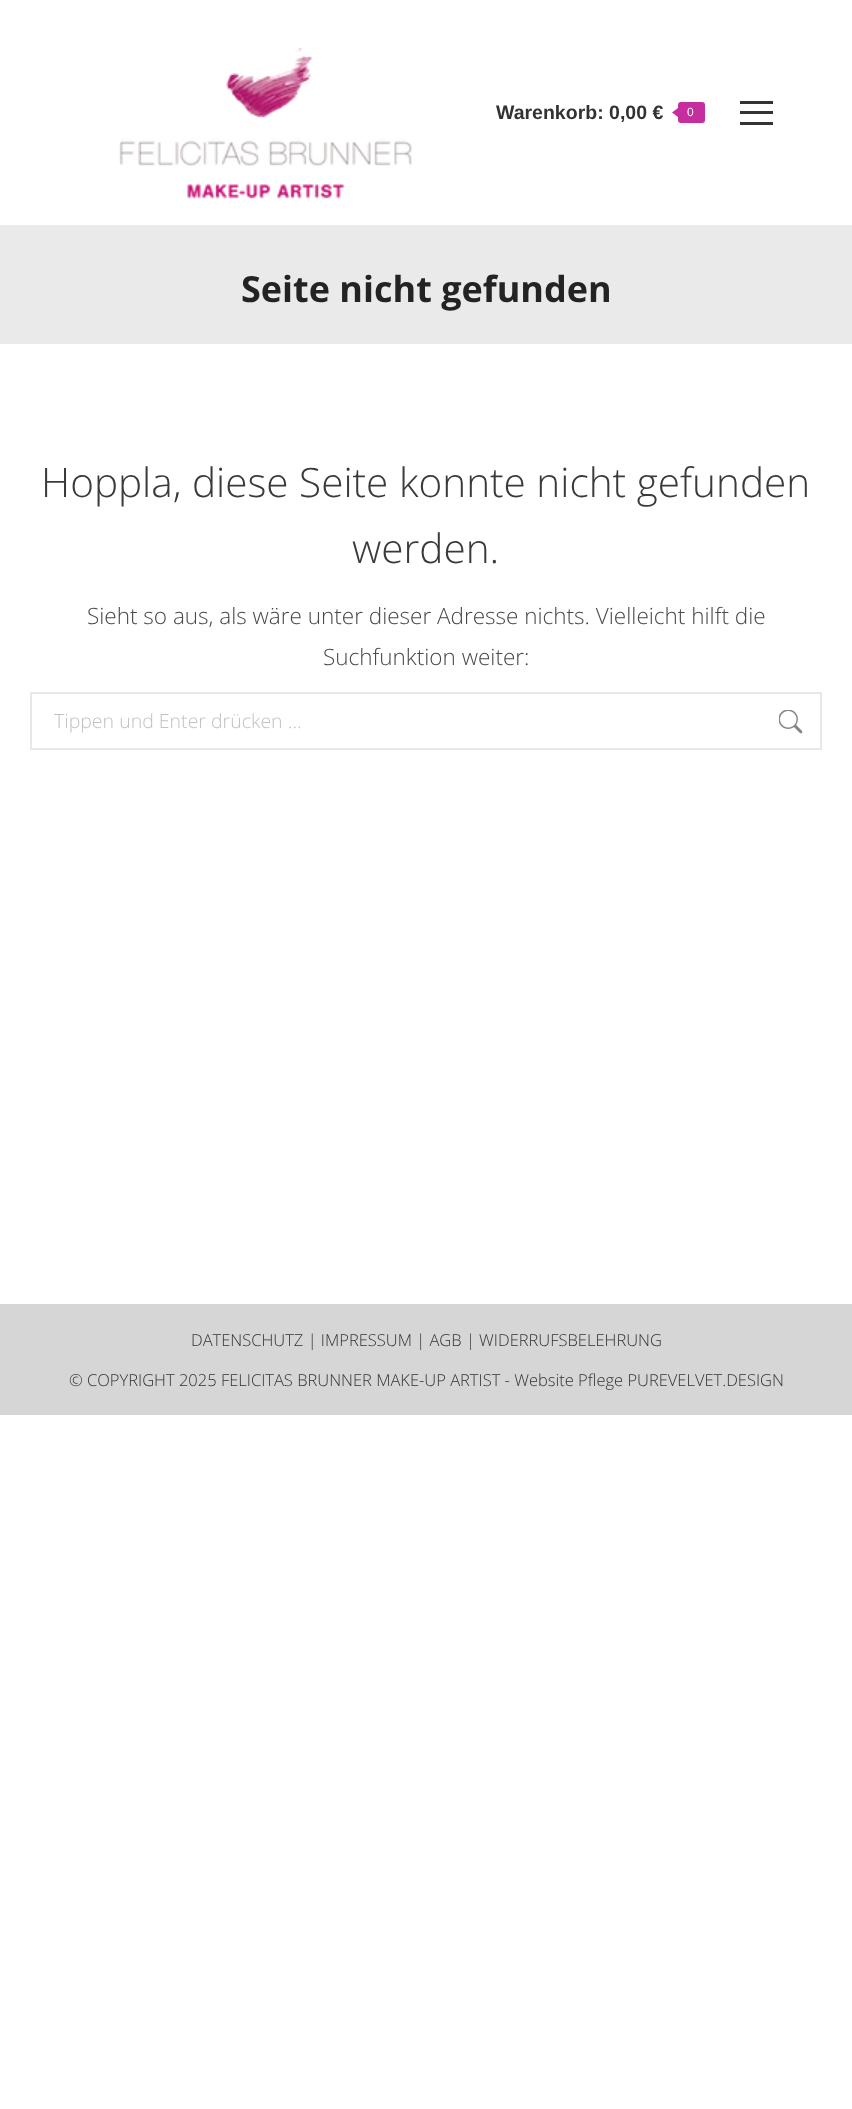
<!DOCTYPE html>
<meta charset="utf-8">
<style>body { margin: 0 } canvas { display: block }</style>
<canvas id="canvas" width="852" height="2109"></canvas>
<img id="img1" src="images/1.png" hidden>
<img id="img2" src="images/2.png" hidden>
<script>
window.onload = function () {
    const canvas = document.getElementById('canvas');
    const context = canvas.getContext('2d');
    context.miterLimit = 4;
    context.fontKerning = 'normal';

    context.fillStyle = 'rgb(255, 255, 255)';
    context.fillRect(0, 0, 852, 2109);
    context.drawImage(document.getElementById('img1'), 119, 47, 294, 152);
    context.fillStyle = 'rgb(198, 45, 158)';
    context.beginPath();
    context.roundRect(678, 102, 27, 21, 3);
    context.fill();
    context.beginPath();
    context.moveTo(678, 108);
    context.lineTo(678, 117);
    context.lineTo(672, 112.5);
    context.closePath();
    context.fill();
    context.fillStyle = 'rgb(51, 51, 51)';
    context.fillRect(740, 101, 33, 3);
    context.fillRect(740, 111, 33, 3);
    context.fillRect(740, 122, 33, 3);
    context.fillStyle = 'rgb(234, 234, 234)';
    context.fillRect(0, 225, 852, 119);
    context.strokeStyle = 'rgb(232, 232, 232)';
    context.lineWidth = 2;
    context.strokeRect(31, 693, 790, 56);
    context.drawImage(document.getElementById('img2'), 779, 710, 24, 24);
    context.fillStyle = 'rgb(214, 214, 214)';
    context.fillRect(0, 1304, 852, 111);
    context.font = 'bold 19.5px Liberation Sans';
    context.fillStyle = 'rgb(50, 50, 50)';
    context.fillText('Warenkorb: 0,00 €', 496, 119);
    context.font = '12px Liberation Sans';
    context.fillStyle = 'rgb(255, 255, 255)';
    context.fillText('0', 687, 116);
    context.font = 'bold 36px Open Sans';
    context.fillStyle = 'rgb(35, 35, 35)';
    context.fillText('Seite nicht gefunden', 241, 302);
    context.font = '300 40.5px Open Sans';
    context.fillStyle = 'rgb(58, 58, 58)';
    context.fillText('Hoppla, diese Seite konnte nicht gefunden', 41, 497);
    context.fillText('werden.', 352, 563);
    context.font = '300 22.5px Open Sans';
    context.fillStyle = 'rgb(73, 73, 73)';
    context.fillText('Sieht so aus, als wäre unter dieser Adresse nichts. Vielleicht hilft die', 87, 624);
    context.fillText('Suchfunktion weiter:', 323, 665);
    context.font = '300 19.5px Open Sans';
    context.fillStyle = 'rgb(193, 194, 197)';
    context.fillText('Tippen und Enter drücken …', 54, 728);
    context.font = '300 16.5px Open Sans';
    context.fillStyle = 'rgb(50, 50, 50)';
    context.fillText('DATENSCHUTZ | IMPRESSUM | AGB | WIDERRUFSBELEHRUNG', 191, 1346);
    context.fillText('© COPYRIGHT 2025 FELICITAS BRUNNER MAKE-UP ARTIST - Website Pflege PUREVELVET.DESIGN', 69, 1386);
};
</script>
